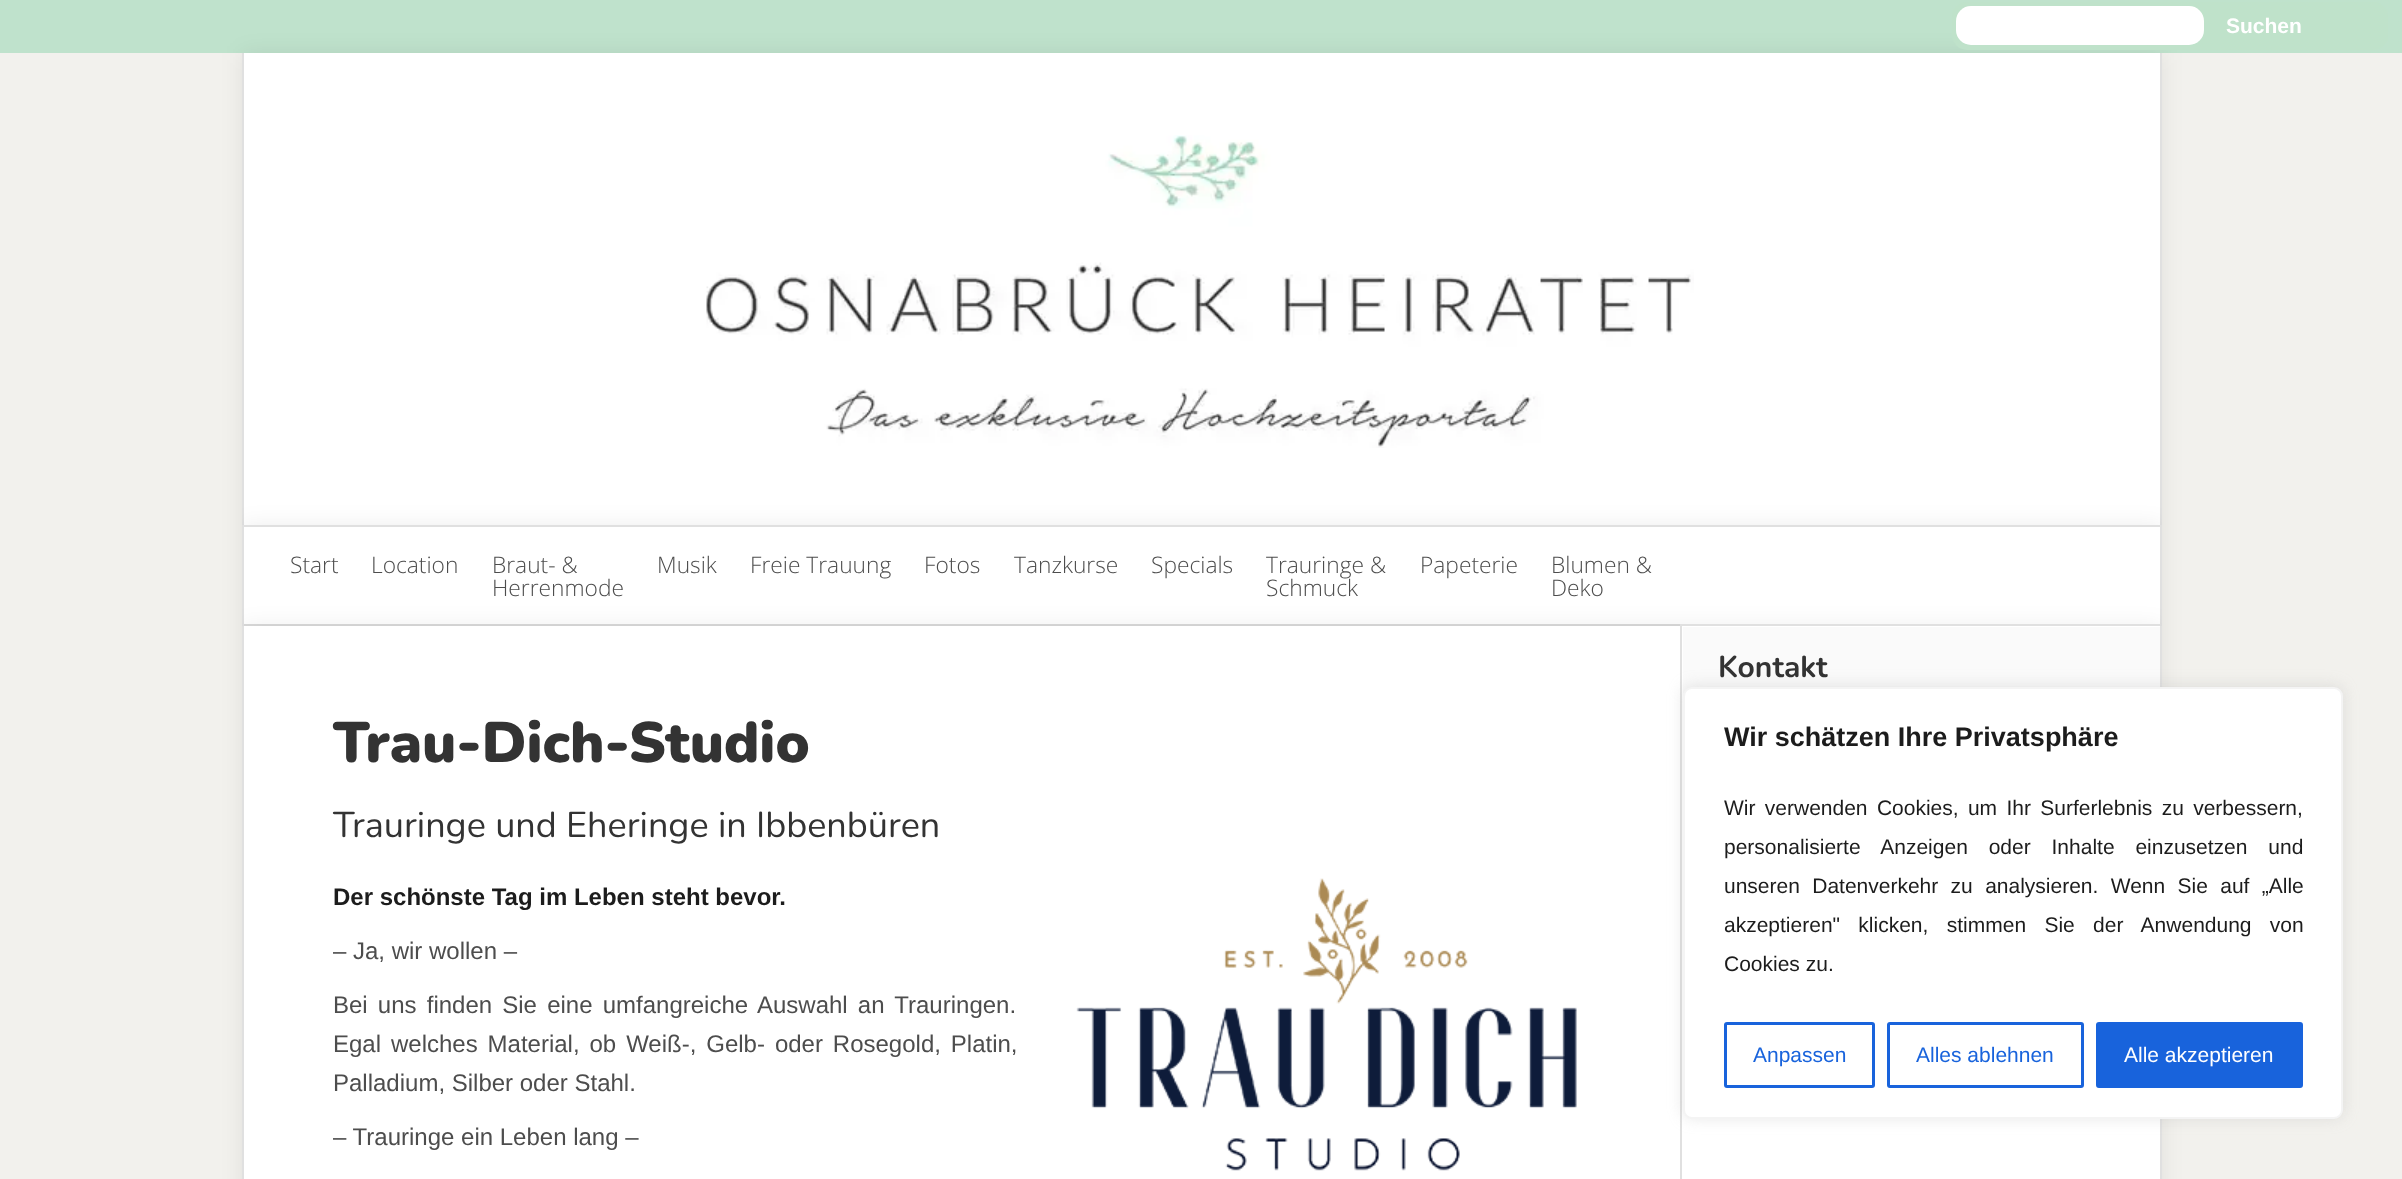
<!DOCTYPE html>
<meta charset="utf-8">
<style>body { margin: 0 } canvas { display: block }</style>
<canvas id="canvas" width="2402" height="1179"></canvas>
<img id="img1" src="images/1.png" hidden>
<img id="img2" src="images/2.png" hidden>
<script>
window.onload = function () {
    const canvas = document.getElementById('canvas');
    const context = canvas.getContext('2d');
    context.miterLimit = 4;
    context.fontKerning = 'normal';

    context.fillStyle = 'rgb(242, 241, 237)';
    context.fillRect(0, 0, 2402, 1179);
    context.fillStyle = 'rgb(191, 226, 204)';
    context.fillRect(0, 0, 2402, 53);
    context.fillStyle = 'rgba(0, 0, 0, 0.07)';
    context.filter = 'blur(11px)';
    context.beginPath();
    context.rect(242, 53, 1920, 472);
    context.fill();
    context.filter = 'none';
    context.fillStyle = 'rgb(255, 255, 255)';
    context.fillRect(244, 53, 1916, 472);
    context.fillStyle = 'rgb(224, 224, 224)';
    context.fillRect(2160, 53, 2, 472);
    context.fillRect(242, 53, 2, 472);
    context.fillStyle = 'rgba(0, 0, 0, 0.07)';
    context.filter = 'blur(11px)';
    context.beginPath();
    context.rect(242, 525, 1920, 101);
    context.fill();
    context.filter = 'none';
    context.fillStyle = 'rgb(255, 255, 255)';
    context.fillRect(244, 527, 1916, 97);
    context.fillStyle = 'rgb(218, 218, 218)';
    context.fillRect(243, 624, 1437, 2);
    context.fillStyle = 'rgb(224, 224, 224)';
    context.fillRect(242, 525, 1920, 2);
    context.fillRect(2160, 525, 2, 101);
    context.fillRect(242, 525, 2, 101);
    context.fillStyle = 'rgba(0, 0, 0, 0.07)';
    context.filter = 'blur(11px)';
    context.beginPath();
    context.rect(242, 626, 1920, 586);
    context.fill();
    context.filter = 'none';
    context.fillStyle = 'rgb(255, 255, 255)';
    context.fillRect(244, 626, 1436, 553);
    context.fillStyle = 'rgb(224, 224, 224)';
    context.fillRect(2160, 626, 2, 553);
    context.fillRect(242, 626, 2, 553);
    context.fillStyle = 'rgb(191, 226, 202)';
    context.beginPath();
    context.roundRect(1952, 2, 436, 48, 15);
    context.fill();
    context.fillStyle = 'rgb(255, 255, 255)';
    context.beginPath();
    context.roundRect(1956, 6, 248, 39, 15);
    context.fill();
    context.fillRect(1682, 699, 478, 480);
    context.fillStyle = 'rgb(224, 224, 224)';
    context.fillRect(1680, 624, 2, 555);
    context.fillStyle = 'rgb(250, 250, 250)';
    context.fillRect(1683, 627, 477, 69);
    context.save();
    context.beginPath();
    context.rect(1682, 626, 478, 73);
    context.clip();
    context.fillStyle = 'rgb(255, 255, 255)';
    context.beginPath();
    context.moveTo(1533, 477);
    context.lineTo(2308, 477);
    context.lineTo(2308, 848);
    context.lineTo(1533, 848);
    context.closePath();
    context.moveTo(1683, 627);
    context.lineTo(2162, 627);
    context.lineTo(2162, 700);
    context.lineTo(1683, 700);
    context.closePath();
    context.fill('evenodd');
    context.restore();
    context.fillStyle = 'rgb(224, 224, 224)';
    context.fillRect(1682, 624, 478, 2);
    context.drawImage(document.getElementById('img1'), 1076, 878, 501, 293);
    context.drawImage(document.getElementById('img2'), 706, 135, 988, 313);
    context.fillStyle = 'rgba(172, 171, 171, 0.3)';
    context.filter = 'blur(7.5px)';
    context.beginPath();
    context.roundRect(1683, 686, 660, 432, 9);
    context.fill();
    context.filter = 'none';
    context.fillStyle = 'rgb(255, 255, 255)';
    context.beginPath();
    context.roundRect(1684, 688, 658, 430, 8);
    context.fill();
    context.strokeStyle = 'rgb(244, 244, 244)';
    context.lineWidth = 2;
    context.stroke();
    context.beginPath();
    context.roundRect(1725.5, 1023.5, 148, 63, 1.5);
    context.strokeStyle = 'rgb(24, 99, 220)';
    context.lineWidth = 3;
    context.stroke();
    context.beginPath();
    context.roundRect(1888.5, 1023.5, 194, 63, 1.5);
    context.stroke();
    context.fillStyle = 'rgb(24, 99, 220)';
    context.beginPath();
    context.roundRect(2097.5, 1023.5, 204, 63, 1.5);
    context.fill();
    context.stroke();
    context.font = 'bold 21px Liberation Sans';
    context.fillStyle = 'rgb(255, 255, 255)';
    context.fillText('Suchen', 2226, 33);
    context.font = 'bold 30px Nunito';
    context.fillStyle = 'rgb(51, 51, 51)';
    context.fillText('Kontakt', 1718, 677);
    context.font = '900 57px Nunito';
    context.fillText('Trau-Dich-Studio', 333, 762);
    context.font = '36px Nunito';
    context.fillText('Trauringe und Eheringe in Ibbenbüren', 333, 837);
    context.font = 'bold 24px Liberation Sans';
    context.fillStyle = 'rgb(28, 28, 28)';
    context.fillText('Der schönste Tag im Leben steht bevor.', 333, 905);
    context.font = '24px Liberation Sans';
    context.fillStyle = 'rgb(77, 77, 77)';
    context.fillText('– Ja, wir wollen –', 333, 959);
    context.wordSpacing = '3.5px';
    context.fillText('Bei uns finden Sie eine umfangreiche Auswahl an Trauringen.', 333, 1013);
    context.wordSpacing = '3.25px';
    context.fillText('Egal welches Material, ob Weiß-, Gelb- oder Rosegold, Platin,', 333, 1052);
    context.wordSpacing = '0px';
    context.fillText('Palladium, Silber oder Stahl.', 333, 1091);
    context.fillText('– Trauringe ein Leben lang –', 333, 1145);
    context.font = '300 22.75px Open Sans';
    context.fillText('Start', 290, 573);
    context.fillText('Location', 371, 573);
    context.fillText('Braut- &', 492, 573);
    context.fillText('Herrenmode', 492, 596);
    context.fillText('Musik', 657, 573);
    context.fillText('Freie Trauung', 750, 573);
    context.fillText('Fotos', 924, 573);
    context.fillText('Tanzkurse', 1014, 573);
    context.fillText('Specials', 1151, 573);
    context.fillText('Trauringe &', 1266, 573);
    context.fillText('Schmuck', 1266, 596);
    context.fillText('Papeterie', 1420, 573);
    context.fillText('Blumen &', 1551, 573);
    context.fillText('Deko', 1551, 596);
    context.font = 'bold 27px Liberation Sans';
    context.fillStyle = 'rgb(28, 28, 28)';
    context.fillText('Wir schätzen Ihre Privatsphäre', 1724, 746);
    context.wordSpacing = '3.5px';
    context.font = '21px Liberation Sans';
    context.fillText('Wir verwenden Cookies, um Ihr Surferlebnis zu verbessern,', 1724, 815);
    context.wordSpacing = '15px';
    context.fillText('personalisierte Anzeigen oder Inhalte einzusetzen und', 1724, 854);
    context.wordSpacing = '6.5px';
    context.fillText('unseren Datenverkehr zu analysieren. Wenn Sie auf „Alle', 1724, 893);
    context.wordSpacing = '12.5px';
    context.fillText('akzeptieren" klicken, stimmen Sie der Anwendung von', 1724, 932);
    context.wordSpacing = '0px';
    context.fillText('Cookies zu.', 1724, 971);
    context.fillStyle = 'rgb(24, 99, 220)';
    context.fillText('Anpassen', 1753, 1062);
    context.fillText('Alles ablehnen', 1916, 1062);
    context.fillStyle = 'rgb(255, 255, 255)';
    context.fillText('Alle akzeptieren', 2124, 1062);
};
</script>
